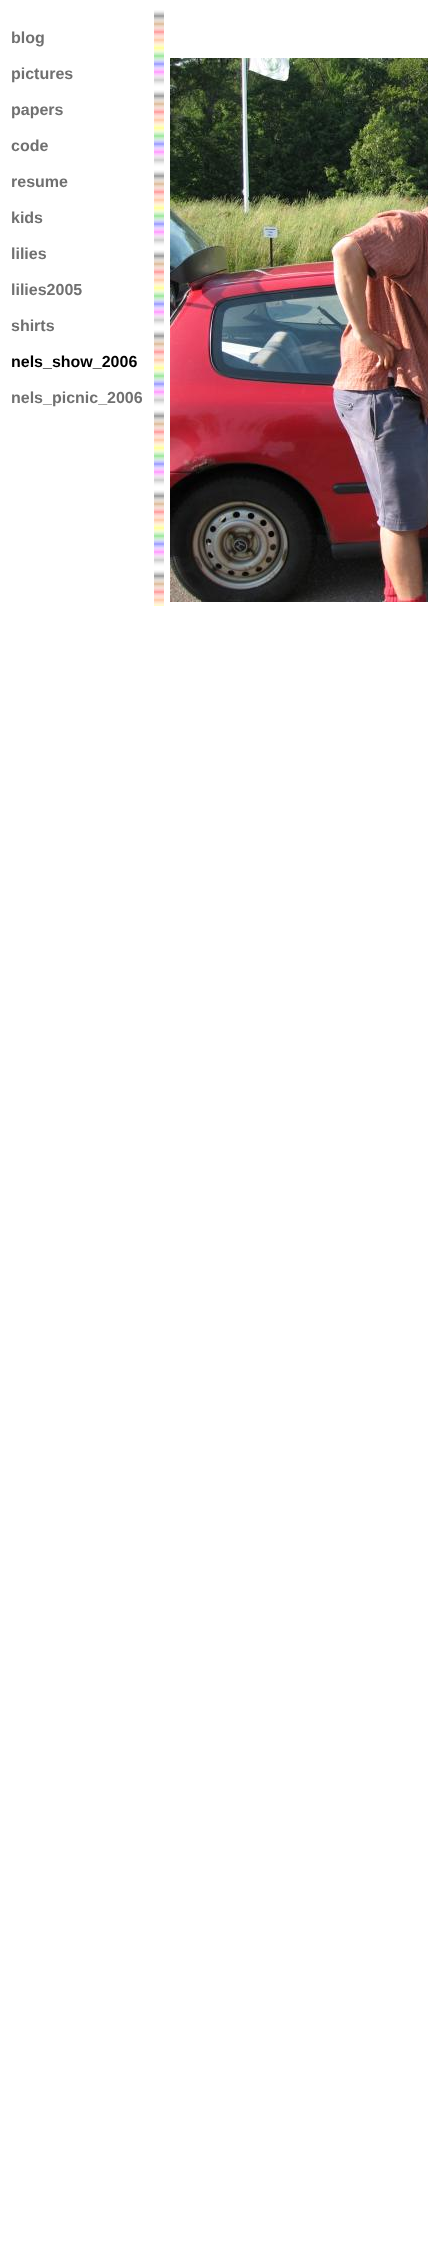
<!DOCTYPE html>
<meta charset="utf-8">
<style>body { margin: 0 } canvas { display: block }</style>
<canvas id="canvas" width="428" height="2246"></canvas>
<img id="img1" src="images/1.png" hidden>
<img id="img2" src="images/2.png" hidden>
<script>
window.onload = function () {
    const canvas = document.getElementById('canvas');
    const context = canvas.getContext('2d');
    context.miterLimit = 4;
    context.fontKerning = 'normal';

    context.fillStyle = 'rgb(255, 255, 255)';
    context.fillRect(0, 0, 428, 2246);
    context.drawImage(document.getElementById('img1'), 154, 10, 10, 596);
    context.drawImage(document.getElementById('img2'), 170, 58, 258, 544);
    context.font = 'bold 16px Liberation Sans';
    context.fillStyle = 'rgb(112, 112, 112)';
    context.fillText('blog', 11, 43);
    context.fillText('pictures', 11, 79);
    context.fillText('papers', 11, 115);
    context.fillText('code', 11, 151);
    context.fillText('resume', 11, 187);
    context.fillText('kids', 11, 223);
    context.fillText('lilies', 11, 259);
    context.fillText('lilies2005', 11, 295);
    context.fillText('shirts', 11, 331);
    context.fillStyle = 'rgb(0, 0, 0)';
    context.fillText('nels_show_2006', 11, 367);
    context.fillStyle = 'rgb(112, 112, 112)';
    context.fillText('nels_picnic_2006', 11, 403);
};
</script>
